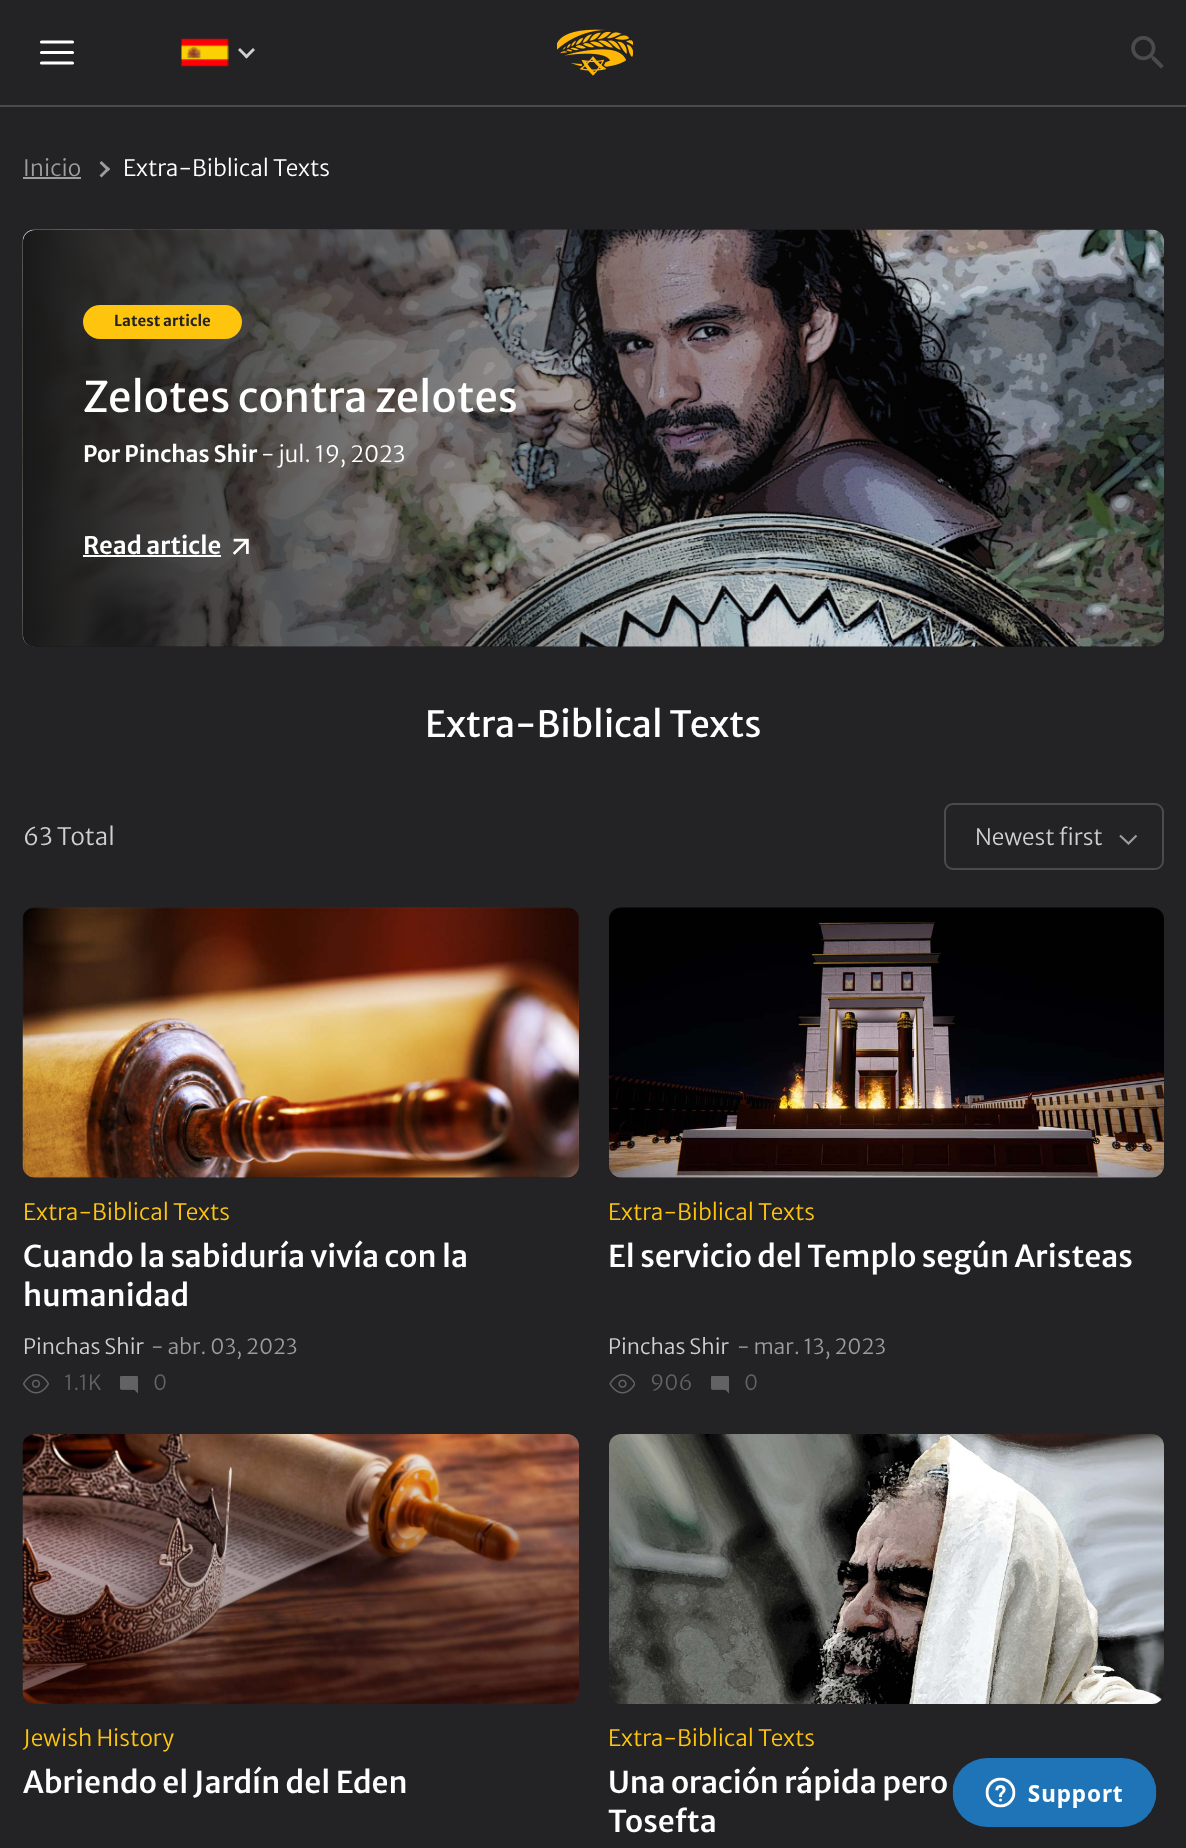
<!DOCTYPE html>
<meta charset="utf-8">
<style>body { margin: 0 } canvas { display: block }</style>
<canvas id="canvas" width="1186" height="1848"></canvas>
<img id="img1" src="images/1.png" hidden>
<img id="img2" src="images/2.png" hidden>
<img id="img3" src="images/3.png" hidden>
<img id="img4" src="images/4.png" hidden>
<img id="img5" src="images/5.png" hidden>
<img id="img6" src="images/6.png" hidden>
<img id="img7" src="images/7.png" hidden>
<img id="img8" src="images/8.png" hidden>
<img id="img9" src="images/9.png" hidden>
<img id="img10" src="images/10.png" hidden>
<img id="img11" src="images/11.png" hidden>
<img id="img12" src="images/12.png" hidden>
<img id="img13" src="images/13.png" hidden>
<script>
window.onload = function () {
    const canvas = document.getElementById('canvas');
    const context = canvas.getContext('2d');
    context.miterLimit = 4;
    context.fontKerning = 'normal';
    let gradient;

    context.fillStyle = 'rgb(35, 35, 37)';
    context.fillRect(0, 0, 1186, 1848);
    context.fillStyle = 'rgb(75, 75, 75)';
    context.fillRect(0, 105, 1186, 2);
    context.beginPath();
    context.moveTo(41.5, 42);
    context.lineTo(72.5, 42);
    context.moveTo(41.5, 52.5);
    context.lineTo(72.5, 52.5);
    context.moveTo(41.5, 63);
    context.lineTo(72.5, 63);
    context.strokeStyle = 'rgb(255, 255, 255)';
    context.lineWidth = 3.1;
    context.lineCap = 'round';
    context.stroke();
    context.drawImage(document.getElementById('img1'), 181, 38, 48, 30);
    context.fillStyle = 'rgb(208, 208, 208)';
    context.beginPath();
    context.moveTo(253, 48);
    context.lineTo(255, 50);
    context.lineTo(246.5, 58.5);
    context.lineTo(244.5, 56.5);
    context.closePath();
    context.fill();
    context.beginPath();
    context.moveTo(240, 48);
    context.lineTo(248.5, 56.5);
    context.lineTo(246.5, 58.5);
    context.lineTo(238, 50);
    context.closePath();
    context.fill();
    context.drawImage(document.getElementById('img2'), 557, 29, 76, 47);
    context.drawImage(document.getElementById('img3'), 1131, 36, 33, 33);
    context.fillStyle = 'rgb(157, 157, 157)';
    context.fillRect(23, 177, 58, 2);
    context.beginPath();
    context.moveTo(99.5, 163);
    context.lineTo(101.5, 161);
    context.lineTo(110, 169);
    context.lineTo(108, 171.5);
    context.closePath();
    context.fill();
    context.beginPath();
    context.moveTo(99.5, 175.5);
    context.lineTo(108, 167);
    context.lineTo(110, 169);
    context.lineTo(101.5, 177.5);
    context.closePath();
    context.fill();
    context.fillStyle = 'rgb(25, 25, 25)';
    context.beginPath();
    context.roundRect(23, 230, 1141, 417, 12);
    context.fill();
    context.drawImage(document.getElementById('img4'), 22, 229, 1142, 418);
    gradient = context.createLinearGradient(23, 438, 1164, 438);
    gradient.addColorStop(0, 'rgb(25, 25, 25)');
    gradient.addColorStop(0.19, 'rgba(25, 25, 25, 0.74)');
    gradient.addColorStop(0.34, 'rgba(25, 25, 25, 0.54)');
    gradient.addColorStop(0.47, 'rgba(25, 25, 25, 0.38)');
    gradient.addColorStop(0.56, 'rgba(25, 25, 25, 0.28)');
    gradient.addColorStop(0.65, 'rgba(25, 25, 25, 0.19)');
    gradient.addColorStop(0.73, 'rgba(25, 25, 25, 0.12)');
    gradient.addColorStop(0.8, 'rgba(25, 25, 25, 0.07)');
    gradient.addColorStop(0.86, 'rgba(25, 25, 25, 0.04)');
    gradient.addColorStop(0.91, 'rgba(25, 25, 25, 0.02)');
    gradient.addColorStop(0.95, 'rgba(25, 25, 25, 0.01)');
    gradient.addColorStop(0.98, 'rgba(25, 25, 25, 0)');
    gradient.addColorStop(1, 'rgba(25, 25, 25, 0)');
    context.fillStyle = gradient;
    context.beginPath();
    context.roundRect(23, 230, 1141, 417, [12, 0, 0, 12]);
    context.fill();
    context.fillStyle = 'rgb(255, 197, 14)';
    context.beginPath();
    context.roundRect(83, 305, 159, 34, 17);
    context.fill();
    context.fillStyle = 'rgb(255, 255, 255)';
    context.fillRect(83, 555, 138, 2);
    context.drawImage(document.getElementById('img5'), 232, 538, 17, 17);
    context.beginPath();
    context.roundRect(945, 804, 218, 65, 8);
    context.strokeStyle = 'rgb(75, 75, 75)';
    context.lineWidth = 2;
    context.stroke();
    context.beginPath();
    context.moveTo(1120, 835.5);
    context.lineTo(1128.5, 843.5);
    context.lineTo(1136.5, 835.5);
    context.strokeStyle = 'rgb(157, 157, 157)';
    context.lineWidth = 2.2;
    context.lineCap = 'butt';
    context.stroke();
    context.fillStyle = 'rgb(25, 25, 25)';
    context.beginPath();
    context.roundRect(23, 908, 556, 270, 12);
    context.fill();
    context.drawImage(document.getElementById('img6'), 22, 907, 557, 271);
    context.drawImage(document.getElementById('img7'), 23, 1374, 26, 20);
    context.drawImage(document.getElementById('img8'), 120, 1376, 18, 18);
    context.beginPath();
    context.roundRect(609, 908, 555, 270, 12);
    context.fill();
    context.drawImage(document.getElementById('img9'), 609, 907, 555, 271);
    context.drawImage(document.getElementById('img10'), 609, 1374, 26, 20);
    context.drawImage(document.getElementById('img8'), 711, 1376, 18, 18);
    context.drawImage(document.getElementById('img11'), 22, 1434, 557, 270);
    context.drawImage(document.getElementById('img12'), 609, 1434, 555, 270);
    context.drawImage(document.getElementById('img13'), 952, 1758, 205, 69);
    context.font = '300 22.5px Merriweather Sans';
    context.fillStyle = 'rgb(157, 157, 157)';
    context.fillText('Inicio', 23, 176);
    context.fillStyle = 'rgb(255, 255, 255)';
    context.fillText('Extra-Biblical Texts', 123, 176);
    context.font = 'bold 15px Merriweather Sans';
    context.fillStyle = 'rgb(35, 35, 37)';
    context.fillText('Latest article', 114, 326);
    context.font = '42px Merriweather Sans';
    context.fillStyle = 'rgb(255, 255, 255)';
    context.fillText('Zelotes contra zelotes', 83, 412);
    context.font = '600 22.5px Merriweather Sans';
    context.fillText('Por Pinchas Shir', 83, 462);
    context.font = '300 22.5px Merriweather Sans';
    context.fillText('- jul. 19, 2023', 261, 462);
    context.font = '600 24px Merriweather Sans';
    context.fillText('Read article', 83, 554);
    context.font = '36px Merriweather Sans';
    context.fillText('Extra-Biblical Texts', 425, 737);
    context.font = '300 24px Merriweather Sans';
    context.fillStyle = 'rgb(208, 208, 208)';
    context.fillText('63 Total', 23, 845);
    context.font = '300 22.5px Merriweather Sans';
    context.fillText('Newest first', 975, 845);
    context.fillStyle = 'rgb(255, 197, 14)';
    context.fillText('Extra-Biblical Texts', 23, 1220);
    context.font = '500 30px Merriweather Sans';
    context.fillStyle = 'rgb(255, 255, 255)';
    context.fillText('Cuando la sabiduría vivía con la', 23, 1267);
    context.fillText('humanidad', 23, 1306);
    context.font = '300 21px Merriweather Sans';
    context.fillStyle = 'rgb(208, 208, 208)';
    context.fillText('Pinchas Shir', 23, 1354);
    context.fillStyle = 'rgb(157, 157, 157)';
    context.fillText('- abr. 03, 2023', 151, 1354);
    context.fillStyle = 'rgb(98, 98, 98)';
    context.fillText('1.1K', 64, 1390);
    context.fillText('0', 153, 1390);
    context.font = '300 22.5px Merriweather Sans';
    context.fillStyle = 'rgb(255, 197, 14)';
    context.fillText('Extra-Biblical Texts', 608, 1220);
    context.font = '500 30px Merriweather Sans';
    context.fillStyle = 'rgb(255, 255, 255)';
    context.fillText('El servicio del Templo según Aristeas', 608, 1267);
    context.font = '300 21px Merriweather Sans';
    context.fillStyle = 'rgb(208, 208, 208)';
    context.fillText('Pinchas Shir', 608, 1354);
    context.fillStyle = 'rgb(157, 157, 157)';
    context.fillText('- mar. 13, 2023', 737, 1354);
    context.fillStyle = 'rgb(98, 98, 98)';
    context.fillText('906', 650, 1390);
    context.fillText('0', 744, 1390);
    context.font = '300 22.5px Merriweather Sans';
    context.fillStyle = 'rgb(255, 197, 14)';
    context.fillText('Jewish History', 23, 1746);
    context.font = '500 30px Merriweather Sans';
    context.fillStyle = 'rgb(255, 255, 255)';
    context.fillText('Abriendo el Jardín del Eden', 23, 1793);
    context.font = '300 22.5px Merriweather Sans';
    context.fillStyle = 'rgb(255, 197, 14)';
    context.fillText('Extra-Biblical Texts', 608, 1746);
    context.font = '500 30px Merriweather Sans';
    context.fillStyle = 'rgb(255, 255, 255)';
    context.fillText('Una oración rápida pero', 608, 1793);
    context.fillText('Tosefta', 608, 1832);
};
</script>
